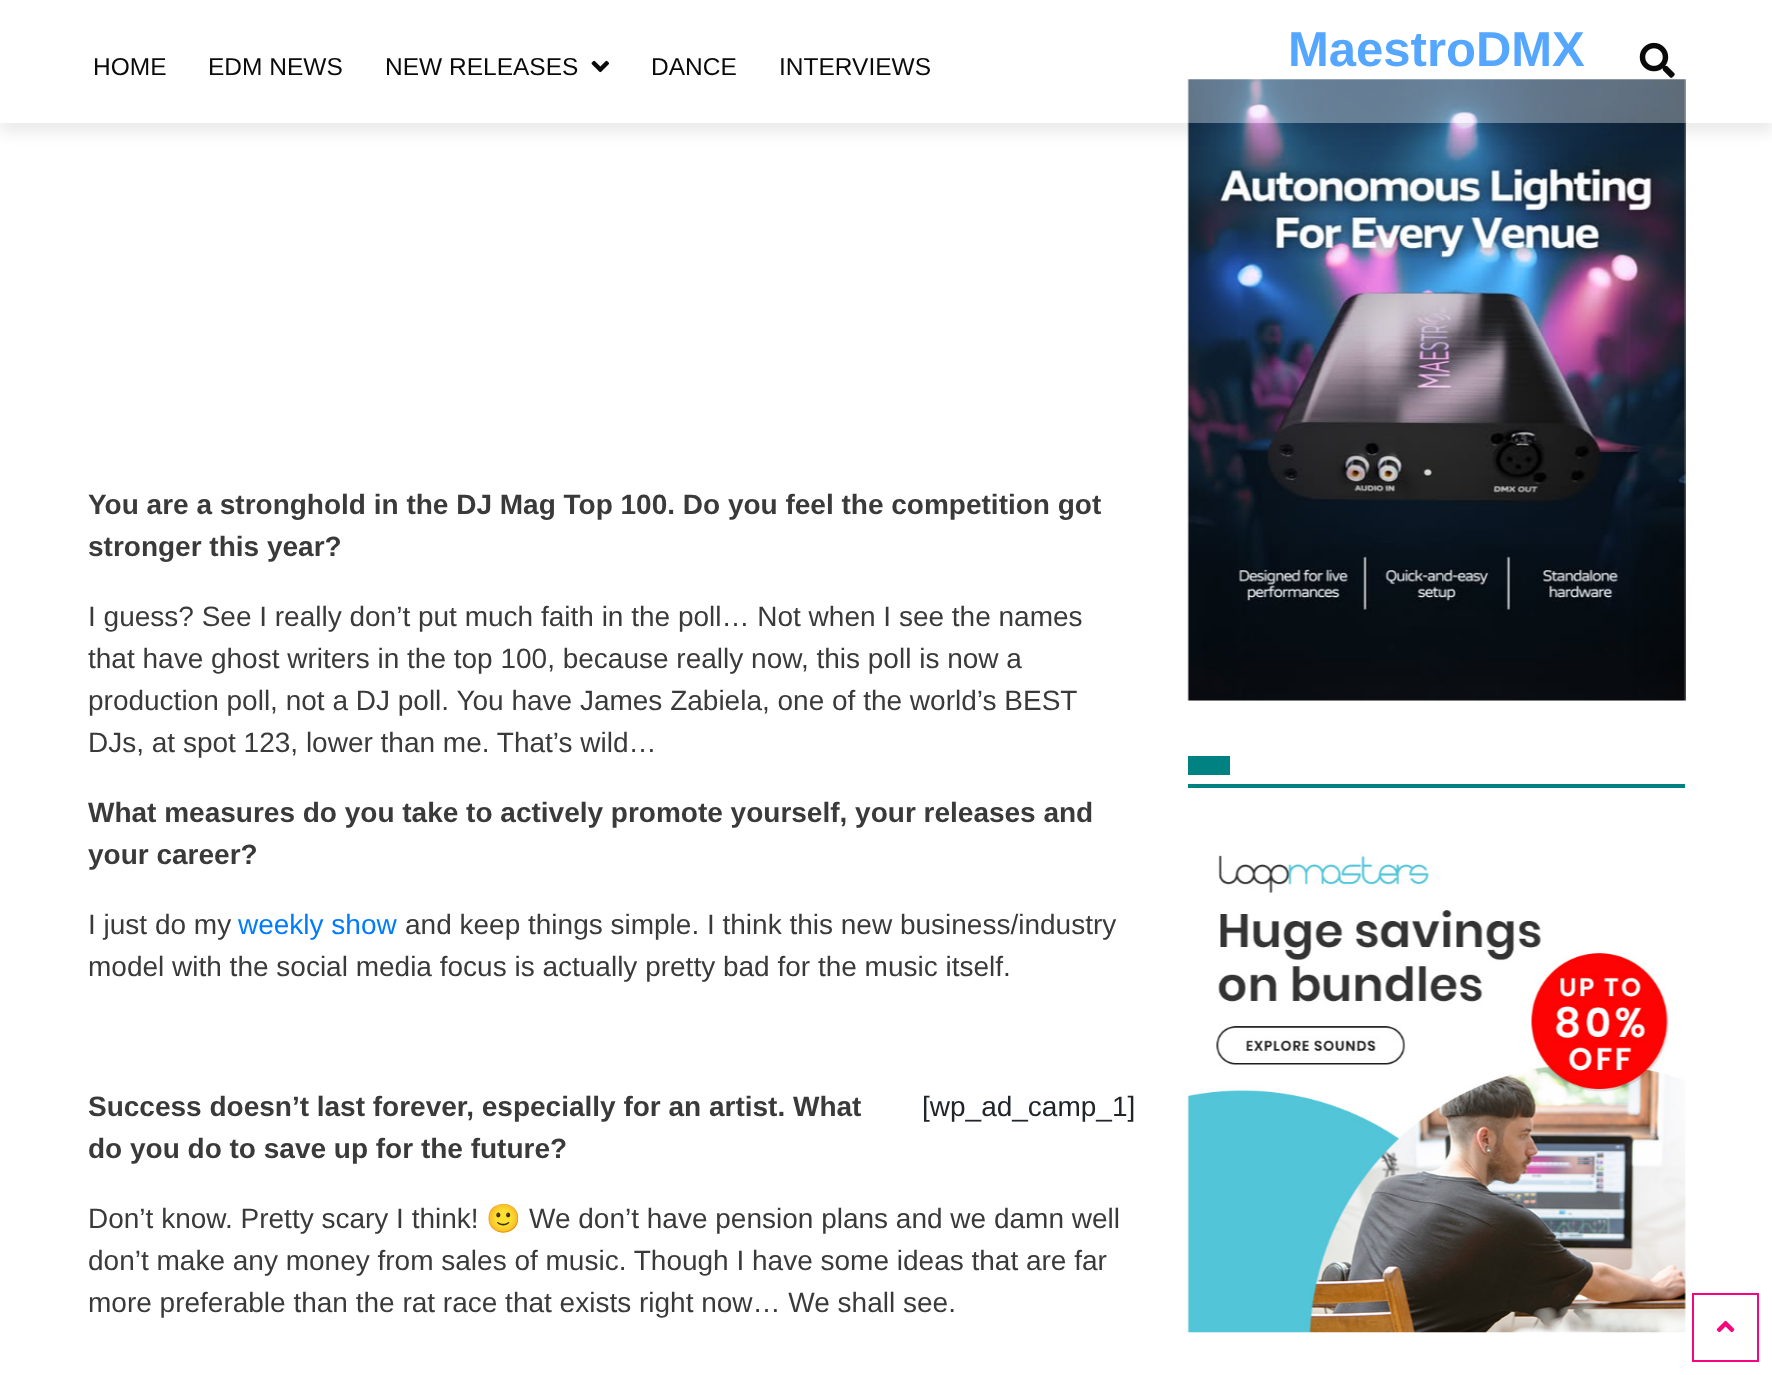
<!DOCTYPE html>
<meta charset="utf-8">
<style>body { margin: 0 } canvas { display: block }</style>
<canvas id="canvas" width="1772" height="1375"></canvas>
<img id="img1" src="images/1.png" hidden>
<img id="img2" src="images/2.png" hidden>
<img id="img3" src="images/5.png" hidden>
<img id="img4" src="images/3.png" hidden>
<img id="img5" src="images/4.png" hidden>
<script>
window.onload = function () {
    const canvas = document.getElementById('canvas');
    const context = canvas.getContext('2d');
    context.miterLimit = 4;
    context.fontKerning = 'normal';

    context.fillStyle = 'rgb(255, 255, 255)';
    context.fillRect(0, 0, 1772, 1375);
    context.drawImage(document.getElementById('img1'), 1187, 79, 499, 622);
    context.fillStyle = 'rgb(0, 130, 130)';
    context.fillRect(1188, 784, 497, 4);
    context.fillRect(1188, 756, 42, 19);
    context.drawImage(document.getElementById('img2'), 1187, 852, 499, 481);
    context.save();
    context.beginPath();
    context.moveTo(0, 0);
    context.lineTo(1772, 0);
    context.lineTo(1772, 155);
    context.lineTo(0, 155);
    context.closePath();
    context.moveTo(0, 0);
    context.lineTo(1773, 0);
    context.lineTo(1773, 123);
    context.lineTo(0, 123);
    context.closePath();
    context.clip('evenodd');
    context.fillStyle = 'rgba(0, 0, 0, 0.08)';
    context.filter = 'blur(7px)';
    context.beginPath();
    context.rect(0, 11, 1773, 122);
    context.fill();
    context.filter = 'none';
    context.restore();
    context.strokeStyle = 'rgb(245, 6, 126)';
    context.lineWidth = 2;
    context.strokeRect(1693, 1294, 65, 67);
    context.drawImage(document.getElementById('img3'), 1716, 1320, 19, 13);
    context.font = 'bold 49px Liberation Sans';
    context.fillStyle = 'rgb(0, 123, 255)';
    context.fillText('MaestroDMX', 1288, 66);
    context.font = 'bold 28px Liberation Sans';
    context.fillStyle = 'rgb(58, 58, 58)';
    context.fillText('You are a stronghold in the DJ Mag Top 100. Do you feel the competition got', 88, 514);
    context.fillText('stronger this year?', 88, 556);
    context.font = '28px Liberation Sans';
    context.fillText('I guess? See I really don’t put much faith in the poll… Not when I see the names', 88, 626);
    context.fillText('that have ghost writers in the top 100, because really now, this poll is now a', 88, 668);
    context.fillText('production poll, not a DJ poll. You have James Zabiela, one of the world’s BEST', 88, 710);
    context.fillText('DJs, at spot 123, lower than me. That’s wild…', 88, 752);
    context.font = 'bold 28px Liberation Sans';
    context.fillText('What measures do you take to actively promote yourself, your releases and', 88, 822);
    context.fillText('your career?', 88, 864);
    context.font = '28px Liberation Sans';
    context.fillText('I just do my', 88, 934);
    context.fillStyle = 'rgb(0, 123, 255)';
    context.fillText('weekly show', 238, 934);
    context.fillStyle = 'rgb(58, 58, 58)';
    context.fillText('and keep things simple. I think this new business/industry', 405, 934);
    context.fillText('model with the social media focus is actually pretty bad for the music itself.', 88, 976);
    context.font = 'bold 28px Liberation Sans';
    context.fillText('Success doesn’t last forever, especially for an artist. What', 88, 1116);
    context.fillText('do you do to save up for the future?', 88, 1158);
    context.font = '28px Liberation Sans';
    context.fillStyle = 'rgb(33, 37, 41)';
    context.fillText('[wp_ad_camp_1]', 922, 1116);
    context.fillStyle = 'rgb(58, 58, 58)';
    context.fillText('Don’t know. Pretty scary I think!', 88, 1228);
    context.font = '28px Noto Color Emoji';
    context.fillText('🙂', 486, 1228);
    context.font = '28px Liberation Sans';
    context.fillText('We don’t have pension plans and we damn well', 529, 1228);
    context.fillText('don’t make any money from sales of music. Though I have some ideas that are far', 88, 1270);
    context.fillText('more preferable than the rat race that exists right now… We shall see.', 88, 1312);
    context.fillStyle = 'rgba(255, 255, 255, 0.33)';
    context.fillRect(7, 32, 1759, 91);
    context.font = '24.5px Liberation Sans';
    context.fillStyle = 'rgb(10, 10, 10)';
    context.fillText('HOME', 93, 75);
    context.fillText('EDM NEWS', 208, 75);
    context.fillText('NEW RELEASES', 385, 75);
    context.drawImage(document.getElementById('img4'), 591, 60, 18, 13);
    context.fillText('DANCE', 651, 75);
    context.fillText('INTERVIEWS', 779, 75);
    context.drawImage(document.getElementById('img5'), 1639, 42, 36, 36);
};
</script>
